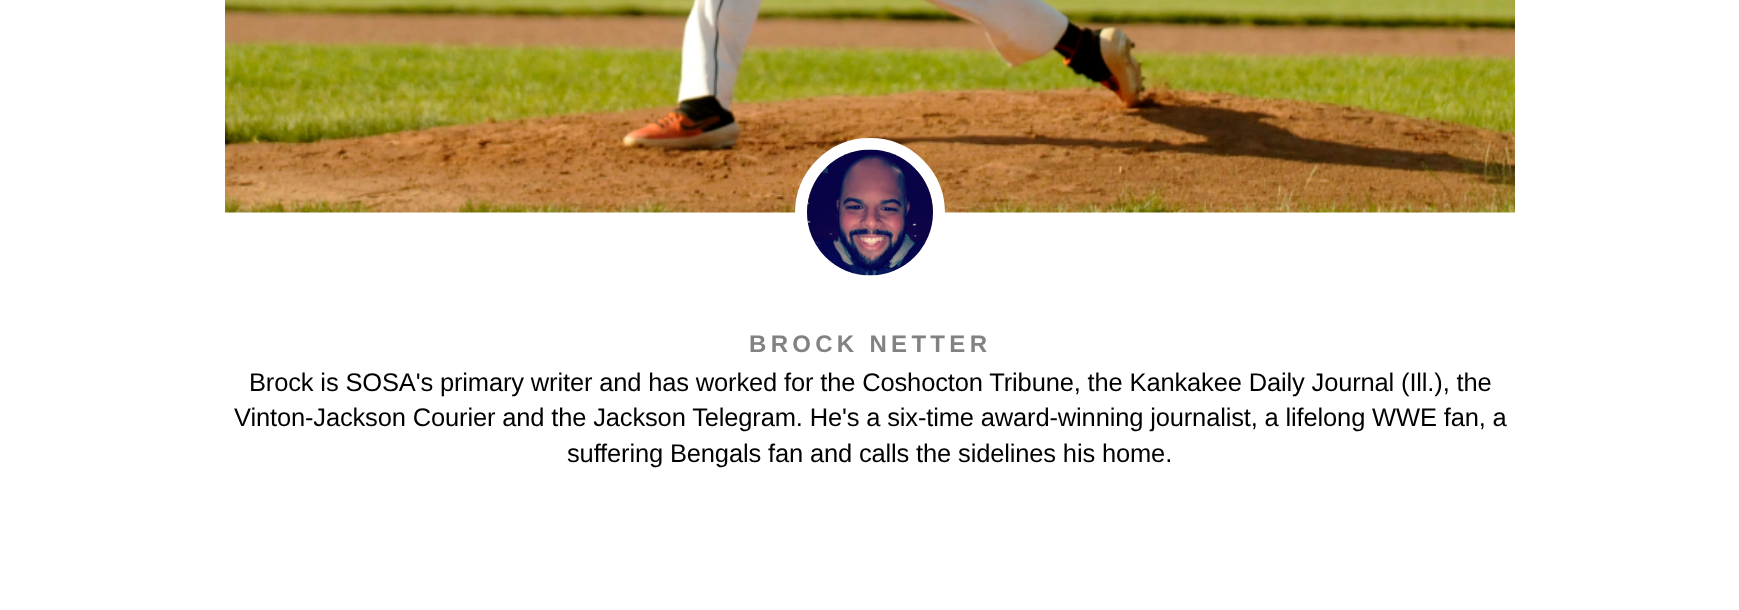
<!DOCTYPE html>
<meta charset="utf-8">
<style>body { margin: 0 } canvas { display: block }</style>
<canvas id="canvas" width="1739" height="610"></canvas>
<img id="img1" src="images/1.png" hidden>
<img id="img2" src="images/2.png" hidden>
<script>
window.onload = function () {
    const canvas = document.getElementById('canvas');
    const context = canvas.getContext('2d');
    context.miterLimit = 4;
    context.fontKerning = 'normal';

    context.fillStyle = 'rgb(255, 255, 255)';
    context.fillRect(0, 0, 1739, 610);
    context.drawImage(document.getElementById('img1'), 225, 0, 1290, 213);
    context.beginPath();
    context.arc(870, 213, 69, 0, 2 * Math.PI);
    context.strokeStyle = 'rgb(255, 255, 255)';
    context.lineWidth = 12;
    context.stroke();
    context.drawImage(document.getElementById('img2'), 807, 149, 126, 127);
    context.letterSpacing = '4.3px';
    context.font = 'bold 24px Liberation Sans';
    context.fillStyle = 'rgb(130, 130, 130)';
    context.fillText('BROCK NETTER', 749, 352);
    context.letterSpacing = '-0.15px';
    context.font = '25.5px Liberation Sans';
    context.fillStyle = 'rgb(0, 0, 0)';
    context.fillText('Brock is SOSA\'s primary writer and has worked for the Coshocton Tribune, the Kankakee Daily Journal (Ill.), the', 249, 391);
    context.fillText('Vinton-Jackson Courier and the Jackson Telegram. He\'s a six-time award-winning journalist, a lifelong WWE fan, a', 234, 426);
    context.fillText('suffering Bengals fan and calls the sidelines his home.', 567, 462);
};
</script>
